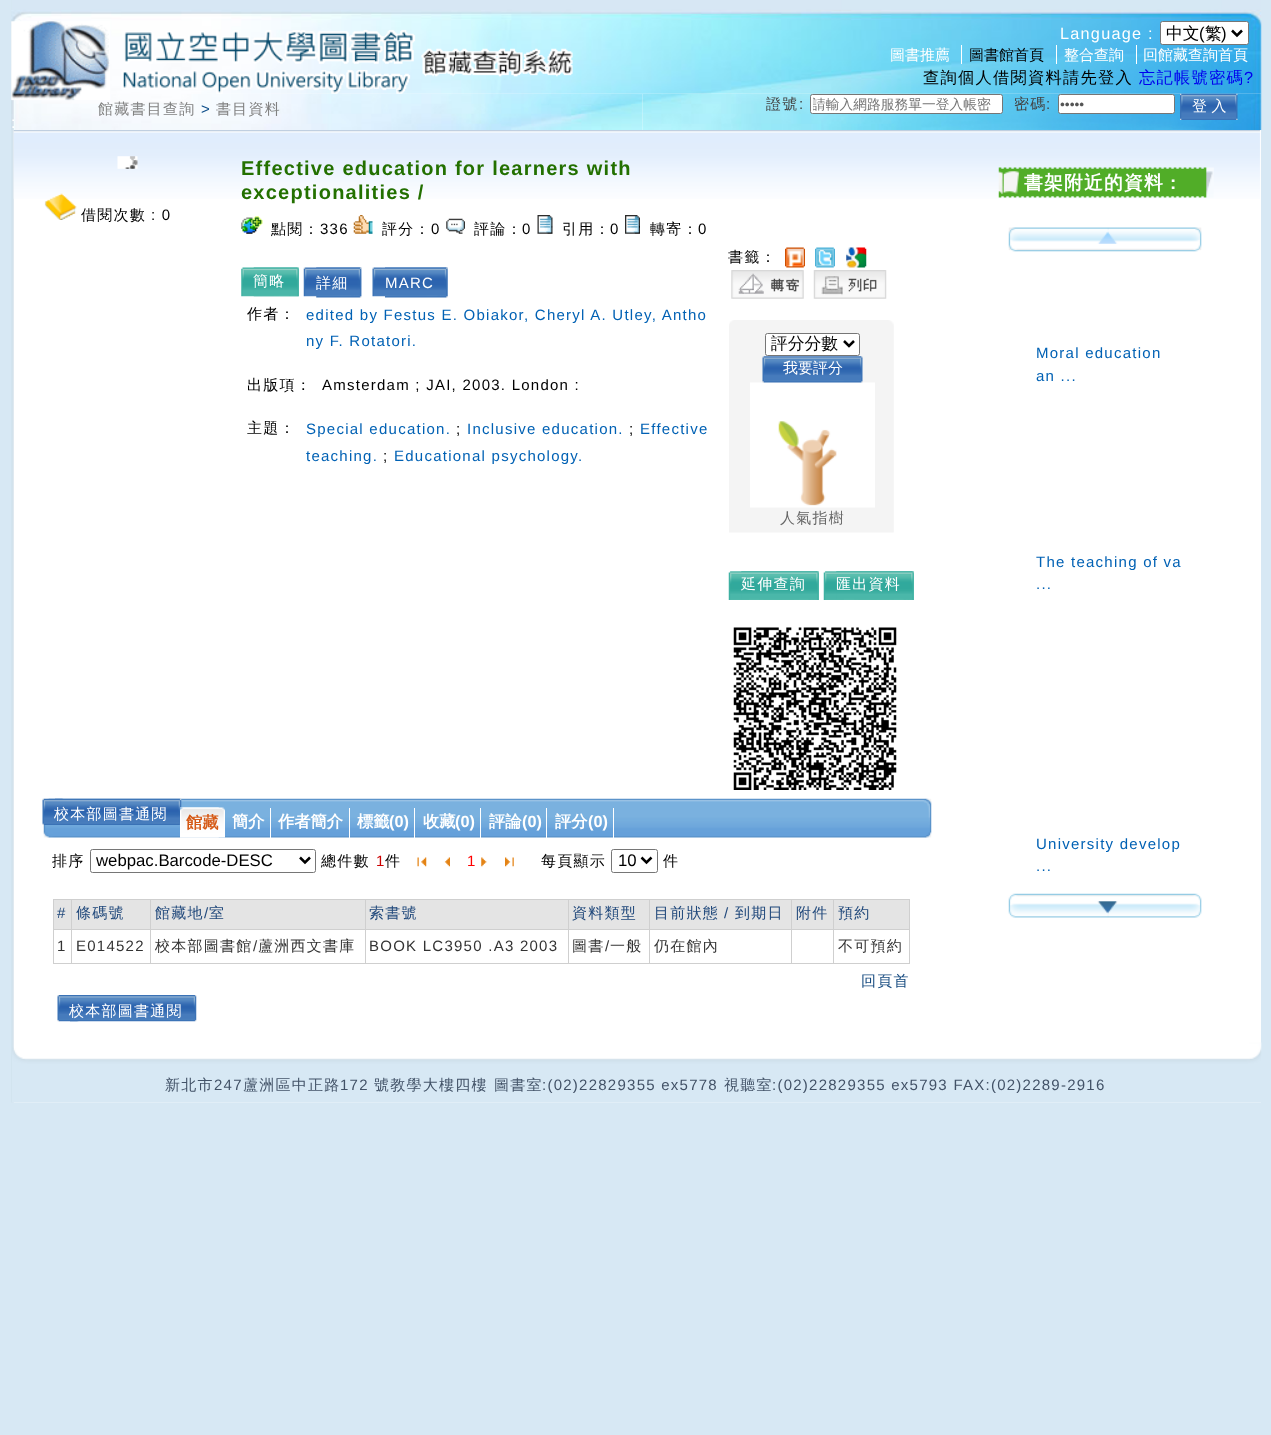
<!DOCTYPE html>
<meta charset="utf-8">
<style>body { margin: 0 } canvas { display: block }</style>
<canvas id="canvas" width="1271" height="1435"></canvas>
<img id="img1" src="images/1.png" hidden>
<img id="img2" src="images/2.png" hidden>
<img id="img3" src="images/4.png" hidden>
<img id="img4" src="images/3.png" hidden>
<img id="img5" src="images/5.png" hidden>
<img id="img6" src="images/6.png" hidden>
<img id="img7" src="images/7.png" hidden>
<img id="img8" src="images/8.png" hidden>
<img id="img9" src="images/9.png" hidden>
<img id="img10" src="images/10.png" hidden>
<img id="img11" src="images/11.png" hidden>
<img id="img12" src="images/12.png" hidden>
<img id="img13" src="images/13.png" hidden>
<img id="img14" src="images/14.png" hidden>
<img id="img15" src="images/15.png" hidden>
<img id="img16" src="images/16.png" hidden>
<img id="img17" src="images/17.png" hidden>
<img id="img18" src="images/18.png" hidden>
<img id="img19" src="images/19.png" hidden>
<img id="img20" src="images/20.png" hidden>
<img id="img21" src="images/21.png" hidden>
<img id="img22" src="images/22.png" hidden>
<img id="img23" src="images/23.png" hidden>
<img id="img24" src="images/24.png" hidden>
<img id="img25" src="images/25.png" hidden>
<img id="img26" src="images/26.png" hidden>
<img id="img27" src="images/28.png" hidden>
<img id="img28" src="images/27.png" hidden>
<img id="img29" src="images/29.png" hidden>
<img id="img30" src="images/30.png" hidden>
<img id="img31" src="images/31.png" hidden>
<img id="img32" src="images/34.png" hidden>
<img id="img33" src="images/32.png" hidden>
<img id="img34" src="images/33.png" hidden>
<img id="img35" src="images/35.png" hidden>
<img id="img36" src="images/36.png" hidden>
<img id="img37" src="images/37.png" hidden>
<img id="img38" src="images/38.png" hidden>
<img id="img39" src="images/39.png" hidden>
<img id="img40" src="images/40.png" hidden>
<img id="img41" src="images/41.png" hidden>
<img id="img42" src="images/42.png" hidden>
<img id="img43" src="images/43.png" hidden>
<img id="img44" src="images/44.png" hidden>
<img id="img45" src="images/45.png" hidden>
<img id="img46" src="images/46.png" hidden>
<script>
window.onload = function () {
    const canvas = document.getElementById('canvas');
    const context = canvas.getContext('2d');
    context.miterLimit = 4;
    context.fontKerning = 'normal';

    context.fillStyle = 'rgb(215, 232, 244)';
    context.fillRect(0, 0, 1271, 1435);
    context.drawImage(document.getElementById('img1'), 11, 0, 1250, 1103);
    context.drawImage(document.getElementById('img2'), 11, 0, 1251, 94);
    context.drawImage(document.getElementById('img3'), 11, 93, 632, 37);
    context.drawImage(document.getElementById('img4'), 11, 21, 562, 80);
    context.fillStyle = 'rgb(255, 255, 255)';
    context.beginPath();
    context.roundRect(1160.5, 21.5, 88, 23, 2);
    context.fill();
    context.strokeStyle = 'rgb(118, 118, 118)';
    context.stroke();
    context.beginPath();
    context.moveTo(1232, 30.5);
    context.lineTo(1237, 35.5);
    context.lineTo(1242, 30.5);
    context.strokeStyle = 'rgb(0, 0, 0)';
    context.lineWidth = 2.5;
    context.stroke();
    context.fillRect(961, 45, 1, 19);
    context.fillRect(1056, 45, 1, 19);
    context.fillRect(1136, 45, 1, 19);
    context.drawImage(document.getElementById('img5'), 642, 93, 620, 37);
    context.beginPath();
    context.roundRect(810.5, 94.5, 192, 19, 2);
    context.fill();
    context.strokeStyle = 'rgb(118, 118, 118)';
    context.lineWidth = 1;
    context.stroke();
    context.beginPath();
    context.roundRect(1058.5, 94.5, 116, 19, 2);
    context.fill();
    context.stroke();
    context.drawImage(document.getElementById('img6'), 1180, 93, 58, 27);
    context.drawImage(document.getElementById('img7'), 13, 130, 1248, 69);
    context.drawImage(document.getElementById('img8'), 117, 156, 21, 13);
    context.drawImage(document.getElementById('img9'), 44, 193, 33, 27);
    context.drawImage(document.getElementById('img10'), 241, 216, 22, 18);
    context.drawImage(document.getElementById('img11'), 353, 215, 20, 19);
    context.drawImage(document.getElementById('img12'), 446, 218, 19, 16);
    context.drawImage(document.getElementById('img13'), 537, 215, 16, 19);
    context.drawImage(document.getElementById('img14'), 625, 215, 15, 19);
    context.drawImage(document.getElementById('img15'), 241, 267, 58, 30);
    context.drawImage(document.getElementById('img16'), 253, 267, 46, 30);
    context.drawImage(document.getElementById('img17'), 303, 267, 59, 30);
    context.drawImage(document.getElementById('img18'), 316, 267, 46, 31);
    context.drawImage(document.getElementById('img19'), 372, 267, 76, 30);
    context.drawImage(document.getElementById('img20'), 385, 267, 63, 31);
    context.drawImage(document.getElementById('img21'), 785, 247, 20, 21);
    context.drawImage(document.getElementById('img22'), 815, 247, 20, 21);
    context.drawImage(document.getElementById('img23'), 846, 247, 21, 21);
    context.drawImage(document.getElementById('img24'), 731, 270, 73, 29);
    context.drawImage(document.getElementById('img25'), 813, 270, 74, 29);
    context.drawImage(document.getElementById('img26'), 729, 320, 165, 213);
    context.beginPath();
    context.roundRect(765.5, 333.5, 94, 22, 2);
    context.fill();
    context.stroke();
    context.beginPath();
    context.moveTo(844, 341);
    context.lineTo(849, 346);
    context.lineTo(854, 341);
    context.strokeStyle = 'rgb(0, 0, 0)';
    context.lineWidth = 2.5;
    context.stroke();
    context.drawImage(document.getElementById('img27'), 750, 382, 125, 126);
    context.drawImage(document.getElementById('img28'), 762, 356, 101, 27);
    context.drawImage(document.getElementById('img29'), 728, 571, 91, 29);
    context.drawImage(document.getElementById('img30'), 741, 571, 78, 29);
    context.drawImage(document.getElementById('img29'), 823, 571, 91, 29);
    context.drawImage(document.getElementById('img30'), 836, 571, 78, 29);
    context.drawImage(document.getElementById('img31'), 733, 627, 164, 163);
    context.drawImage(document.getElementById('img32'), 43, 798, 889, 40);
    context.drawImage(document.getElementById('img33'), 42, 798, 22, 27);
    context.drawImage(document.getElementById('img34'), 55, 798, 127, 27);
    context.drawImage(document.getElementById('img35'), 180, 807, 45, 31);
    context.drawImage(document.getElementById('img36'), 180, 807, 39, 31);
    context.fillRect(270, 808, 1, 30);
    context.fillRect(349, 808, 1, 30);
    context.fillRect(414, 808, 1, 30);
    context.fillRect(480, 808, 1, 30);
    context.fillRect(546, 808, 1, 30);
    context.fillRect(613, 808, 1, 30);
    context.beginPath();
    context.roundRect(90.5, 849.5, 225, 23, 2);
    context.strokeStyle = 'rgb(118, 118, 118)';
    context.lineWidth = 1;
    context.stroke();
    context.beginPath();
    context.moveTo(300, 857.5);
    context.lineTo(305, 862.5);
    context.lineTo(310, 857.5);
    context.strokeStyle = 'rgb(0, 0, 0)';
    context.lineWidth = 2.5;
    context.stroke();
    context.drawImage(document.getElementById('img37'), 417, 857, 10, 10);
    context.drawImage(document.getElementById('img38'), 444, 857, 6, 10);
    context.drawImage(document.getElementById('img39'), 481, 857, 6, 10);
    context.drawImage(document.getElementById('img40'), 505, 857, 9, 10);
    context.beginPath();
    context.roundRect(611.5, 849.5, 46, 23, 2);
    context.strokeStyle = 'rgb(118, 118, 118)';
    context.lineWidth = 1;
    context.stroke();
    context.beginPath();
    context.moveTo(641.5, 857.5);
    context.lineTo(646.5, 862.5);
    context.lineTo(651.5, 857.5);
    context.strokeStyle = 'rgb(0, 0, 0)';
    context.lineWidth = 2.5;
    context.stroke();
    context.fillStyle = 'rgb(207, 207, 207)';
    context.fillRect(53, 899, 857, 1);
    context.fillRect(909, 899, 1, 65);
    context.fillRect(53, 899, 1, 65);
    context.fillStyle = 'rgb(228, 228, 228)';
    context.fillRect(54, 900, 17, 29);
    context.fillStyle = 'rgb(207, 207, 207)';
    context.fillRect(833, 963, 77, 1);
    context.fillRect(833, 929, 1, 35);
    context.fillRect(833, 929, 77, 1);
    context.fillRect(833, 899, 1, 31);
    context.fillRect(791, 963, 43, 1);
    context.fillRect(791, 929, 1, 35);
    context.fillRect(791, 929, 43, 1);
    context.fillRect(791, 899, 1, 31);
    context.fillRect(649, 963, 144, 1);
    context.fillRect(649, 929, 1, 35);
    context.fillRect(649, 929, 144, 1);
    context.fillRect(649, 899, 1, 31);
    context.fillRect(568, 963, 82, 1);
    context.fillRect(568, 929, 1, 35);
    context.fillRect(568, 929, 82, 1);
    context.fillRect(568, 899, 1, 31);
    context.fillRect(365, 963, 204, 1);
    context.fillRect(365, 929, 1, 35);
    context.fillRect(365, 929, 204, 1);
    context.fillRect(365, 899, 1, 31);
    context.fillRect(150, 963, 216, 1);
    context.fillRect(150, 929, 1, 35);
    context.fillRect(150, 929, 216, 1);
    context.fillRect(150, 899, 1, 31);
    context.fillRect(71, 963, 80, 1);
    context.fillRect(71, 929, 1, 35);
    context.fillRect(71, 929, 80, 1);
    context.fillRect(71, 899, 1, 31);
    context.fillRect(53, 929, 20, 1);
    context.fillStyle = 'rgb(228, 228, 228)';
    context.fillRect(72, 900, 78, 29);
    context.fillRect(151, 900, 214, 29);
    context.fillRect(366, 900, 202, 29);
    context.fillRect(569, 900, 80, 29);
    context.fillRect(650, 900, 141, 29);
    context.fillRect(792, 900, 41, 29);
    context.fillRect(834, 900, 75, 29);
    context.fillStyle = 'rgb(207, 207, 207)';
    context.fillRect(53, 963, 20, 1);
    context.drawImage(document.getElementById('img41'), 57, 995, 22, 27);
    context.drawImage(document.getElementById('img42'), 70, 995, 127, 27);
    context.drawImage(document.getElementById('img43'), 998, 167, 216, 31);
    context.drawImage(document.getElementById('img44'), 1008, 227, 194, 25);
    context.drawImage(document.getElementById('img45'), 1008, 893, 194, 25);
    context.drawImage(document.getElementById('img46'), 12, 1042, 1250, 61);
    context.letterSpacing = '1.25px';
    context.font = '16.25px Liberation Sans';
    context.fillStyle = 'rgb(255, 255, 255)';
    context.fillText('Language :', 1060, 39);
    context.letterSpacing = '0px';
    context.font = '500 16.75px WenQuanYi Zen Hei';
    context.fillStyle = 'rgb(0, 0, 0)';
    context.fillText('中文', 1166, 39);
    context.font = '16.75px Liberation Sans';
    context.fillText('(', 1199, 39);
    context.font = '500 16.75px WenQuanYi Zen Hei';
    context.fillText('繁', 1205, 39);
    context.font = '16.75px Liberation Sans';
    context.fillText(')', 1221, 39);
    context.font = '500 15px WenQuanYi Zen Hei';
    context.fillStyle = 'rgb(255, 255, 255)';
    context.fillText('圖書推薦', 890, 60);
    context.fillStyle = 'rgb(0, 0, 0)';
    context.fillText('圖書館首頁', 969, 60);
    context.fillStyle = 'rgb(255, 255, 255)';
    context.fillText('整合查詢', 1064, 60);
    context.fillText('回館藏查詢首頁', 1143, 60);
    context.letterSpacing = '1.25px';
    context.font = '500 16.25px WenQuanYi Zen Hei';
    context.fillStyle = 'rgb(0, 0, 0)';
    context.fillText('查詢個人借閱資料請先登入', 923, 83);
    context.fillStyle = 'rgb(0, 0, 238)';
    context.fillText('忘記帳號密碼', 1139, 83);
    context.font = '16.25px Liberation Sans';
    context.fillText('?', 1244, 83);
    context.fillStyle = 'rgb(255, 255, 255)';
    context.fillText(':', 11, 128);
    context.font = '500 15px WenQuanYi Zen Hei';
    context.fillStyle = 'rgb(129, 129, 129)';
    context.fillText('館藏書目查詢', 98, 114);
    context.font = '15px Liberation Sans';
    context.fillStyle = 'rgb(15, 79, 139)';
    context.fillText('>', 201, 114);
    context.font = '500 15px WenQuanYi Zen Hei';
    context.fillStyle = 'rgb(129, 129, 129)';
    context.fillText('書目資料', 216, 114);
    context.fillStyle = 'rgb(68, 68, 68)';
    context.fillText('證號', 766, 109);
    context.font = '15px Liberation Sans';
    context.fillText(':', 799, 109);
    context.save();
    context.beginPath();
    context.rect(813, 96, 187, 15);
    context.clip();
    context.letterSpacing = '0px';
    context.font = '500 13.75px WenQuanYi Zen Hei';
    context.fillStyle = 'rgb(117, 117, 117)';
    context.fillText('請輸入網路服務單一登入帳密', 812, 109);
    context.restore();
    context.font = '500 15px WenQuanYi Zen Hei';
    context.fillText('密碼', 1014, 109);
    context.font = '15px Liberation Sans';
    context.fillText(':', 1046, 109);
    context.letterSpacing = '0px';
    context.font = '13.75px Liberation Sans';
    context.fillStyle = 'rgb(85, 85, 85)';
    context.fillText('•••••', 1060, 109);
    context.font = '500 15px WenQuanYi Zen Hei';
    context.fillStyle = 'rgb(255, 255, 255)';
    context.fillText('登 入', 1192, 111);
    context.letterSpacing = '1.25px';
    context.fillStyle = 'rgb(0, 0, 0)';
    context.fillText('借閱次數', 81, 220);
    context.font = '15px Liberation Sans';
    context.fillText(': 0', 151, 220);
    context.font = 'bold 20px Liberation Sans';
    context.fillStyle = 'rgb(35, 112, 0)';
    context.fillText('Effective education for learners with', 241, 175);
    context.fillText('exceptionalities /', 241, 199);
    context.font = '500 15px WenQuanYi Zen Hei';
    context.fillStyle = 'rgb(0, 0, 0)';
    context.fillText('點閱：', 271, 234);
    context.font = '15px Liberation Sans';
    context.fillText('336', 320, 234);
    context.font = '500 15px WenQuanYi Zen Hei';
    context.fillText('評分：', 382, 234);
    context.font = '15px Liberation Sans';
    context.fillText('0', 431, 234);
    context.font = '500 15px WenQuanYi Zen Hei';
    context.fillText('評論：', 474, 234);
    context.font = '15px Liberation Sans';
    context.fillText('0', 522, 234);
    context.font = '500 15px WenQuanYi Zen Hei';
    context.fillText('引用：', 562, 234);
    context.font = '15px Liberation Sans';
    context.fillText('0', 610, 234);
    context.font = '500 15px WenQuanYi Zen Hei';
    context.fillText('轉寄：', 650, 234);
    context.font = '15px Liberation Sans';
    context.fillText('0', 698, 234);
    context.font = '500 15px WenQuanYi Zen Hei';
    context.fillStyle = 'rgb(255, 255, 255)';
    context.fillText('簡略', 253, 286);
    context.fillText('詳細', 316, 288);
    context.font = '15px Liberation Sans';
    context.fillText('MARC', 385, 288);
    context.font = '500 15px WenQuanYi Zen Hei';
    context.fillStyle = 'rgb(0, 0, 0)';
    context.fillText('作者：', 247, 319);
    context.font = '15px Liberation Sans';
    context.fillStyle = 'rgb(0, 97, 180)';
    context.fillText('edited by Festus E. Obiakor, Cheryl A. Utley, Antho', 306, 320);
    context.fillText('ny F. Rotatori.', 306, 346);
    context.font = '500 15px WenQuanYi Zen Hei';
    context.fillStyle = 'rgb(0, 0, 0)';
    context.fillText('出版項：', 247, 390);
    context.font = '15px Liberation Sans';
    context.fillText('Amsterdam ; JAI, 2003. London :', 322, 390);
    context.font = '500 15px WenQuanYi Zen Hei';
    context.fillText('主題：', 247, 433);
    context.font = '15px Liberation Sans';
    context.fillStyle = 'rgb(0, 97, 180)';
    context.fillText('Special education.', 306, 434);
    context.fillStyle = 'rgb(0, 0, 0)';
    context.fillText(';', 456, 434);
    context.fillStyle = 'rgb(0, 97, 180)';
    context.fillText('Inclusive education.', 467, 434);
    context.fillStyle = 'rgb(0, 0, 0)';
    context.fillText(';', 629, 434);
    context.fillStyle = 'rgb(0, 97, 180)';
    context.fillText('Effective', 640, 434);
    context.fillText('teaching.', 306, 461);
    context.fillStyle = 'rgb(0, 0, 0)';
    context.fillText(';', 383, 461);
    context.fillStyle = 'rgb(0, 97, 180)';
    context.fillText('Educational psychology.', 394, 461);
    context.font = '500 15px WenQuanYi Zen Hei';
    context.fillStyle = 'rgb(0, 0, 0)';
    context.fillText('書籤：', 728, 262);
    context.letterSpacing = '0px';
    context.font = '500 16.75px WenQuanYi Zen Hei';
    context.fillText('評分分數', 771, 349);
    context.font = '500 15px WenQuanYi Zen Hei';
    context.fillStyle = 'rgb(255, 255, 255)';
    context.fillText('我要評分', 783, 373);
    context.letterSpacing = '1.25px';
    context.fillStyle = 'rgb(102, 102, 102)';
    context.fillText('人氣指樹', 780, 523);
    context.fillStyle = 'rgb(255, 255, 255)';
    context.fillText('延伸查詢', 741, 589);
    context.fillText('匯出資料', 836, 589);
    context.fillText('校本部圖書通閱', 54, 819);
    context.letterSpacing = '0px';
    context.font = 'bold 16.25px WenQuanYi Zen Hei';
    context.fillStyle = 'rgb(213, 89, 21)';
    context.fillText('館藏', 186, 828);
    context.fillStyle = 'rgb(255, 255, 255)';
    context.fillText('簡介', 232, 827);
    context.fillText('作者簡介', 278, 827);
    context.fillText('標籤', 357, 827);
    context.font = 'bold 16.25px Liberation Sans';
    context.fillText('(0)', 389, 827);
    context.font = 'bold 16.25px WenQuanYi Zen Hei';
    context.fillText('收藏', 423, 827);
    context.font = 'bold 16.25px Liberation Sans';
    context.fillText('(0)', 455, 827);
    context.font = 'bold 16.25px WenQuanYi Zen Hei';
    context.fillText('評論', 489, 827);
    context.font = 'bold 16.25px Liberation Sans';
    context.fillText('(0)', 522, 827);
    context.font = 'bold 16.25px WenQuanYi Zen Hei';
    context.fillText('評分', 555, 827);
    context.font = 'bold 16.25px Liberation Sans';
    context.fillText('(0)', 588, 827);
    context.letterSpacing = '1.25px';
    context.font = '500 15px WenQuanYi Zen Hei';
    context.fillStyle = 'rgb(0, 0, 0)';
    context.fillText('排序', 52, 866);
    context.letterSpacing = '0px';
    context.font = '16.75px Liberation Sans';
    context.fillText('webpac.Barcode-DESC', 96, 866);
    context.letterSpacing = '1.25px';
    context.font = '500 15px WenQuanYi Zen Hei';
    context.fillText('總件數', 321, 866);
    context.font = '15px Liberation Sans';
    context.fillStyle = 'rgb(204, 0, 0)';
    context.fillText('1', 376, 866);
    context.font = '500 15px WenQuanYi Zen Hei';
    context.fillStyle = 'rgb(0, 0, 0)';
    context.fillText('件', 385, 866);
    context.font = '15px Liberation Sans';
    context.fillStyle = 'rgb(255, 0, 0)';
    context.fillText('1', 467, 866);
    context.font = '500 15px WenQuanYi Zen Hei';
    context.fillStyle = 'rgb(0, 0, 0)';
    context.fillText('每頁顯示', 541, 866);
    context.letterSpacing = '0px';
    context.font = '16.75px Liberation Sans';
    context.fillText('10', 618, 866);
    context.letterSpacing = '1.25px';
    context.font = '500 15px WenQuanYi Zen Hei';
    context.fillText('件', 663, 866);
    context.font = '15px Liberation Sans';
    context.fillStyle = 'rgb(32, 72, 123)';
    context.fillText('#', 57, 918);
    context.font = '500 15px WenQuanYi Zen Hei';
    context.fillText('條碼號', 76, 918);
    context.fillText('館藏地', 155, 918);
    context.font = '15px Liberation Sans';
    context.fillText('/', 204, 918);
    context.font = '500 15px WenQuanYi Zen Hei';
    context.fillText('室', 209, 918);
    context.fillText('索書號', 369, 918);
    context.fillText('資料類型', 572, 918);
    context.fillText('目前狀態', 654, 918);
    context.font = '15px Liberation Sans';
    context.fillText('/', 724, 918);
    context.font = '500 15px WenQuanYi Zen Hei';
    context.fillText('到期日', 735, 918);
    context.fillText('附件', 796, 918);
    context.fillText('預約', 838, 918);
    context.font = '15px Liberation Sans';
    context.fillStyle = 'rgb(51, 51, 51)';
    context.fillText('1', 57, 951);
    context.fillText('E014522', 76, 951);
    context.font = '500 15px WenQuanYi Zen Hei';
    context.fillText('校本部圖書館', 155, 951);
    context.font = '15px Liberation Sans';
    context.fillText('/', 253, 951);
    context.font = '500 15px WenQuanYi Zen Hei';
    context.fillText('蘆洲西文書庫', 258, 951);
    context.font = '15px Liberation Sans';
    context.fillText('BOOK LC3950 .A3 2003', 369, 951);
    context.font = '500 15px WenQuanYi Zen Hei';
    context.fillText('圖書', 572, 951);
    context.font = '15px Liberation Sans';
    context.fillText('/', 605, 951);
    context.font = '500 15px WenQuanYi Zen Hei';
    context.fillText('一般', 610, 951);
    context.fillText('仍在館內', 654, 951);
    context.fillText('不可預約', 838, 951);
    context.fillStyle = 'rgb(20, 73, 127)';
    context.fillText('回頁首', 861, 986);
    context.fillStyle = 'rgb(255, 255, 255)';
    context.fillText('校本部圖書通閱', 69, 1016);
    context.font = 'bold 18.75px WenQuanYi Zen Hei';
    context.fillText('書架附近的資料', 1024, 189);
    context.font = 'bold 18.75px Liberation Sans';
    context.fillText(':', 1170, 189);
    context.font = '15px Liberation Sans';
    context.fillStyle = 'rgb(0, 97, 180)';
    context.fillText('Moral education', 1036, 358);
    context.fillText('an ...', 1036, 381);
    context.fillText('The teaching of va', 1036, 567);
    context.fillText('...', 1036, 589);
    context.fillText('University develop', 1036, 849);
    context.fillText('...', 1036, 871);
    context.font = '500 15px WenQuanYi Zen Hei';
    context.fillStyle = 'rgb(66, 82, 103)';
    context.fillText('新北市', 165, 1090);
    context.font = '15px Liberation Sans';
    context.fillText('247', 214, 1090);
    context.font = '500 15px WenQuanYi Zen Hei';
    context.fillText('蘆洲區中正路', 243, 1090);
    context.font = '15px Liberation Sans';
    context.fillText('172', 340, 1090);
    context.font = '500 15px WenQuanYi Zen Hei';
    context.fillText('號教學大樓四樓', 374, 1090);
    context.fillText('圖書室', 494, 1090);
    context.font = '15px Liberation Sans';
    context.fillText(':(02)22829355 ex5778', 542, 1090);
    context.font = '500 15px WenQuanYi Zen Hei';
    context.fillText('視聽室', 724, 1090);
    context.font = '15px Liberation Sans';
    context.fillText(':(02)22829355 ex5793 FAX:(02)2289-2916', 772, 1090);
};
</script>
